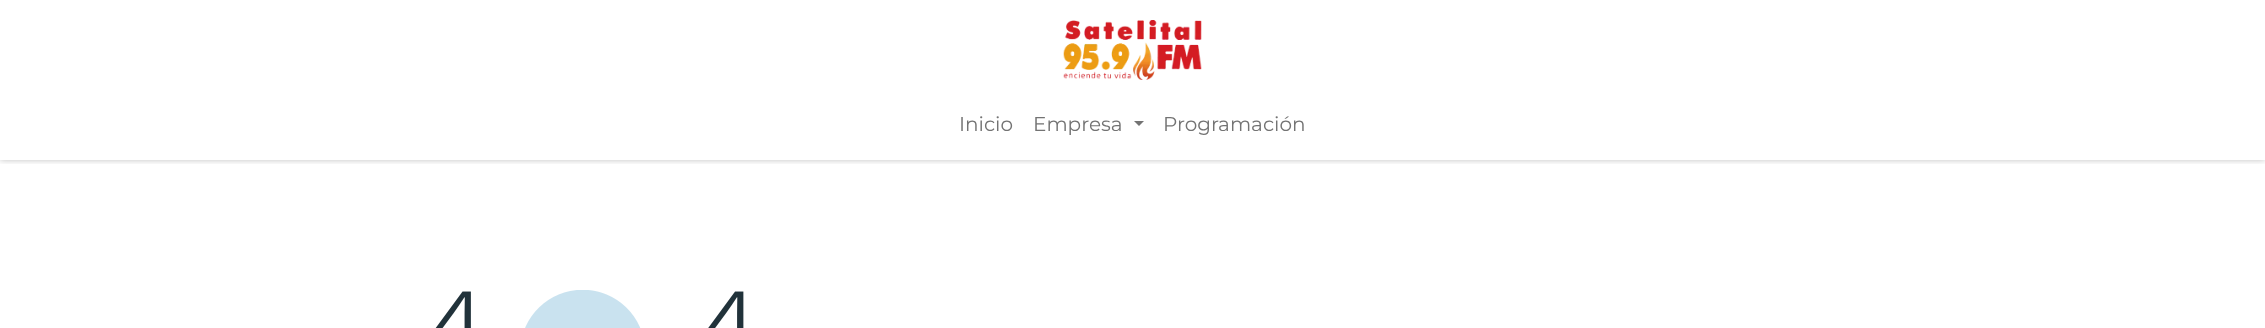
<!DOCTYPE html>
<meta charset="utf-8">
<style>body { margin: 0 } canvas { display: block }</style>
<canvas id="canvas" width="2265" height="328"></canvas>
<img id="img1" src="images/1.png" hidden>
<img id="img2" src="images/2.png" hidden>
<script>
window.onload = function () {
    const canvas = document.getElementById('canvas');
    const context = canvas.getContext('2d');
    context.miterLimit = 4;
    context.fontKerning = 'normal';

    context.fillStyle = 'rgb(255, 255, 255)';
    context.fillRect(0, 0, 2265, 328);
    context.save();
    context.beginPath();
    context.rect(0, 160, 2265, 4);
    context.clip();
    context.fillStyle = 'rgba(0, 0, 0, 0.25)';
    context.filter = 'blur(3px)';
    context.beginPath();
    context.rect(0, 0, 2265, 160);
    context.fill();
    context.filter = 'none';
    context.restore();
    context.drawImage(document.getElementById('img1'), 1063, 20, 139, 60);
    context.fillStyle = 'rgb(115, 115, 115)';
    context.beginPath();
    context.moveTo(1134, 121);
    context.lineTo(1144, 121);
    context.lineTo(1139, 126);
    context.closePath();
    context.fill();
    context.drawImage(document.getElementById('img2'), 435, 290, 309, 38);
    context.font = '20px Montserrat';
    context.fillText('Inicio', 959, 131);
    context.fillText('Empresa', 1033, 131);
    context.fillText('Programación', 1163, 131);
};
</script>
